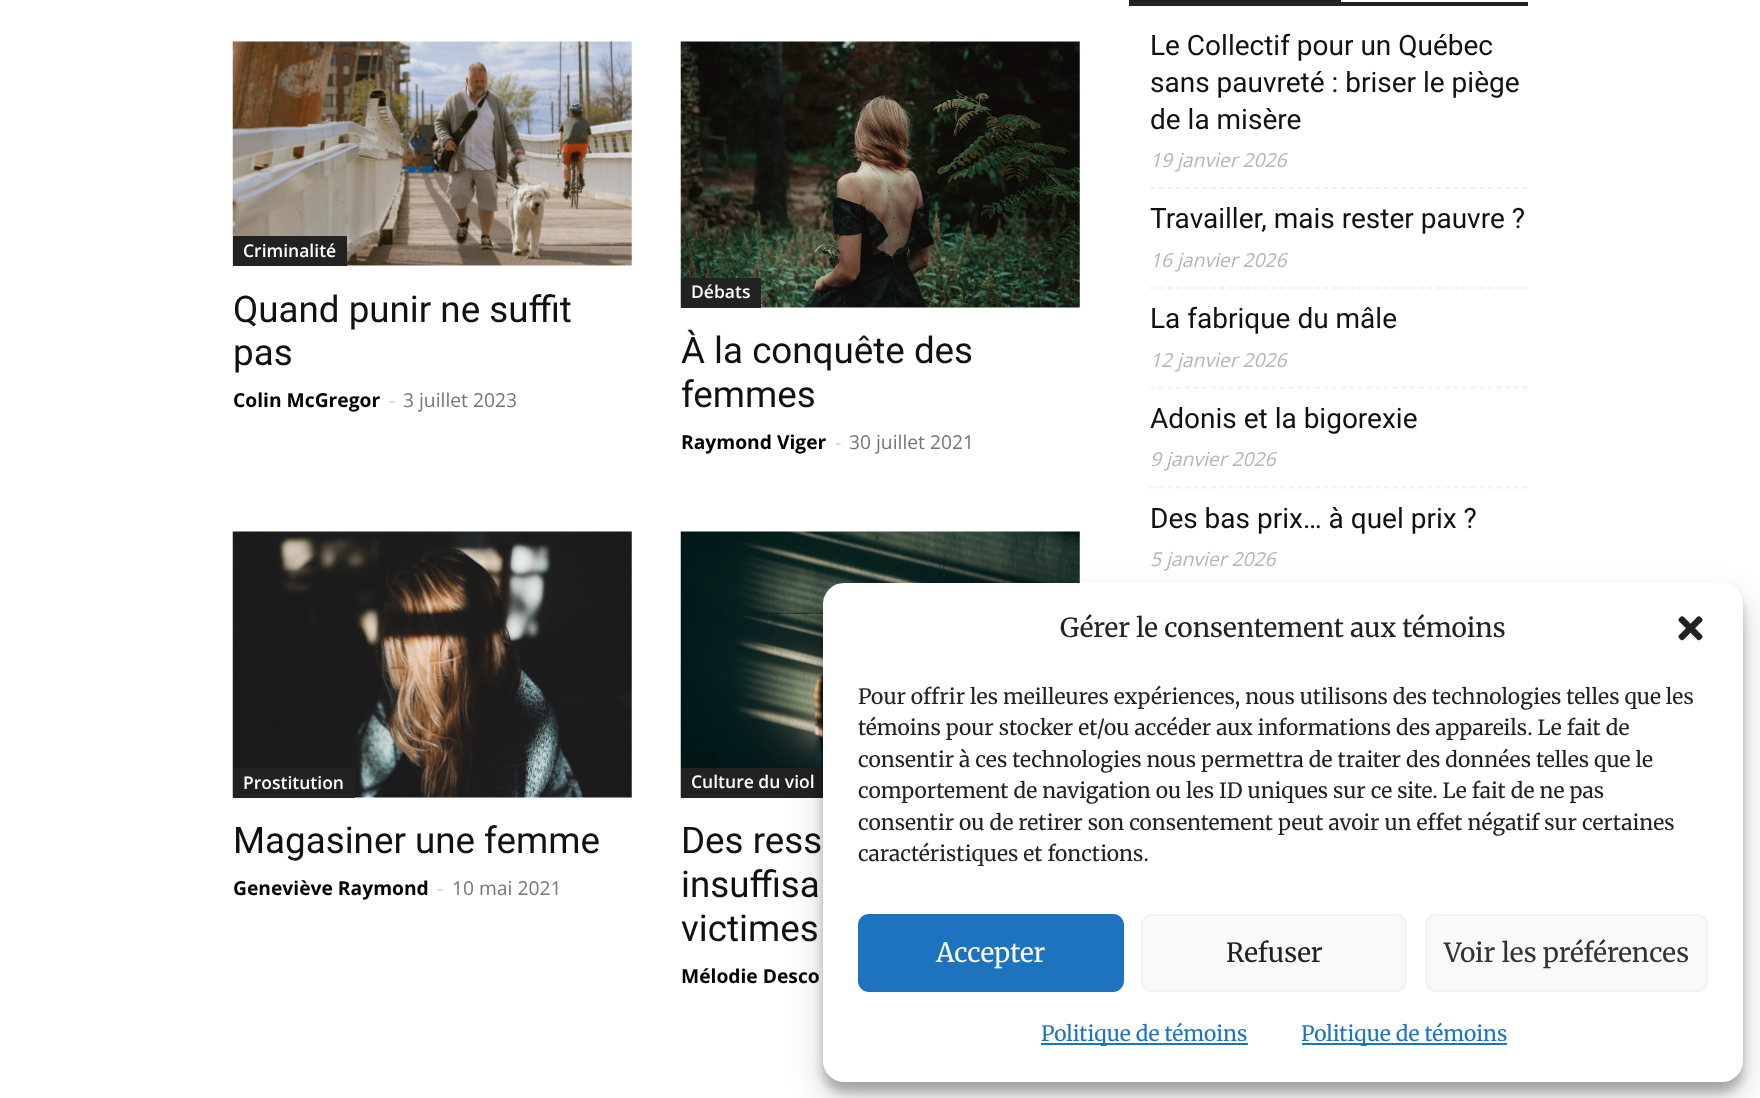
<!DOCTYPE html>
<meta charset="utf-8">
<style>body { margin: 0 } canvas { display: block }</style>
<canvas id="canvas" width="1760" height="1098"></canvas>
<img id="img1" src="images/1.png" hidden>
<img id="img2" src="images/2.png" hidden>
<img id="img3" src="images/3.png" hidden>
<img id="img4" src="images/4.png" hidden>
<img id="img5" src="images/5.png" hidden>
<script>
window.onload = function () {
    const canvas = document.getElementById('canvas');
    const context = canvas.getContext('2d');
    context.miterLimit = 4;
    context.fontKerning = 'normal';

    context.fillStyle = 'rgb(255, 255, 255)';
    context.fillRect(0, 0, 1760, 1098);
    context.drawImage(document.getElementById('img1'), 232, 41, 400, 225);
    context.fillStyle = 'rgb(34, 34, 34)';
    context.fillRect(233, 236, 114, 30);
    context.drawImage(document.getElementById('img2'), 680, 41, 400, 267);
    context.fillRect(681, 278, 80, 30);
    context.drawImage(document.getElementById('img3'), 232, 531, 400, 267);
    context.fillRect(233, 768, 122, 30);
    context.drawImage(document.getElementById('img4'), 680, 531, 400, 267);
    context.fillRect(681, 768, 142, 30);
    context.fillRect(1129, 2, 399, 4);
    context.fillRect(1129, 0, 212, 2);
    context.beginPath();
    context.moveTo(1150, 188);
    context.lineTo(1528, 188);
    context.strokeStyle = 'rgb(241, 241, 241)';
    context.lineWidth = 1.8;
    context.setLineDash([5.25, 3.41]);
    context.stroke();
    context.beginPath();
    context.moveTo(1150, 288);
    context.lineTo(1528, 288);
    context.stroke();
    context.beginPath();
    context.moveTo(1150, 387.5);
    context.lineTo(1528, 387.5);
    context.stroke();
    context.beginPath();
    context.moveTo(1150, 487.5);
    context.lineTo(1528, 487.5);
    context.stroke();
    context.fillStyle = 'rgba(0, 0, 0, 0.23)';
    context.filter = 'blur(5px)';
    context.beginPath();
    context.roundRect(823, 593, 920, 499, 21);
    context.fill();
    context.filter = 'none';
    context.fillStyle = 'rgba(0, 0, 0, 0.19)';
    context.filter = 'blur(17.5px)';
    context.beginPath();
    context.roundRect(823, 600, 920, 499, 21);
    context.fill();
    context.filter = 'none';
    context.fillStyle = 'rgb(255, 255, 255)';
    context.beginPath();
    context.roundRect(823, 583, 920, 499, 21);
    context.fill();
    context.drawImage(document.getElementById('img5'), 1678, 616, 25, 25);
    context.fillStyle = 'rgb(30, 115, 190)';
    context.beginPath();
    context.roundRect(859, 915, 264, 76, 10);
    context.fill();
    context.strokeStyle = 'rgb(30, 115, 190)';
    context.lineWidth = 2;
    context.setLineDash([]);
    context.stroke();
    context.fillStyle = 'rgb(249, 249, 249)';
    context.beginPath();
    context.roundRect(1142, 915, 264, 76, 10);
    context.fill();
    context.strokeStyle = 'rgb(242, 242, 242)';
    context.stroke();
    context.beginPath();
    context.roundRect(1426, 915, 281, 76, 10);
    context.fill();
    context.stroke();
    context.fillStyle = 'rgb(30, 115, 190)';
    context.fillRect(1041, 1043, 207, 2);
    context.fillRect(1302, 1043, 205, 2);
    context.font = '600 17.5px Open Sans';
    context.fillStyle = 'rgb(255, 255, 255)';
    context.fillText('Criminalité', 243, 257);
    context.font = '36.75px Roboto';
    context.fillStyle = 'rgb(17, 17, 17)';
    context.fillText('Quand punir ne suffit', 233, 322);
    context.fillText('pas', 233, 365);
    context.font = 'bold 19.25px Open Sans';
    context.fillStyle = 'rgb(0, 0, 0)';
    context.fillText('Colin McGregor', 233, 407);
    context.font = '19.25px Open Sans';
    context.fillStyle = 'rgb(204, 204, 204)';
    context.fillText('-', 389, 407);
    context.fillStyle = 'rgb(118, 118, 118)';
    context.fillText('3 juillet 2023', 403, 407);
    context.font = '600 17.5px Open Sans';
    context.fillStyle = 'rgb(255, 255, 255)';
    context.fillText('Débats', 691, 298);
    context.font = '36.75px Roboto';
    context.fillStyle = 'rgb(17, 17, 17)';
    context.fillText('À la conquête des', 681, 363);
    context.fillText('femmes', 681, 407);
    context.font = 'bold 19.25px Open Sans';
    context.fillStyle = 'rgb(0, 0, 0)';
    context.fillText('Raymond Viger', 681, 449);
    context.font = '19.25px Open Sans';
    context.fillStyle = 'rgb(204, 204, 204)';
    context.fillText('-', 835, 449);
    context.fillStyle = 'rgb(118, 118, 118)';
    context.fillText('30 juillet 2021', 849, 449);
    context.font = '600 17.5px Open Sans';
    context.fillStyle = 'rgb(255, 255, 255)';
    context.fillText('Prostitution', 243, 789);
    context.font = '36.75px Roboto';
    context.fillStyle = 'rgb(17, 17, 17)';
    context.fillText('Magasiner une femme', 233, 853);
    context.font = 'bold 19.25px Open Sans';
    context.fillStyle = 'rgb(0, 0, 0)';
    context.fillText('Geneviève Raymond', 233, 895);
    context.font = '19.25px Open Sans';
    context.fillStyle = 'rgb(204, 204, 204)';
    context.fillText('-', 437, 895);
    context.fillStyle = 'rgb(118, 118, 118)';
    context.fillText('10 mai 2021', 452, 895);
    context.font = '600 17.5px Open Sans';
    context.fillStyle = 'rgb(255, 255, 255)';
    context.fillText('Culture du viol', 691, 788);
    context.font = '36.75px Roboto';
    context.fillStyle = 'rgb(17, 17, 17)';
    context.fillText('Des ress', 681, 853);
    context.fillText('insuffisa', 681, 897);
    context.fillText('victimes', 681, 941);
    context.font = 'bold 19.25px Open Sans';
    context.fillStyle = 'rgb(0, 0, 0)';
    context.fillText('Mélodie Desco', 681, 983);
    context.font = '28px Roboto';
    context.fillStyle = 'rgb(17, 17, 17)';
    context.fillText('Le Collectif pour un Québec', 1150, 55);
    context.fillText('sans pauvreté : briser le piège', 1150, 92);
    context.fillText('de la misère', 1150, 129);
    context.font = 'italic 19.25px Open Sans';
    context.fillStyle = 'rgb(181, 181, 181)';
    context.fillText('19 janvier 2026', 1150, 167);
    context.font = '28px Roboto';
    context.fillStyle = 'rgb(17, 17, 17)';
    context.fillText('Travailler, mais rester pauvre ?', 1150, 228);
    context.font = 'italic 19.25px Open Sans';
    context.fillStyle = 'rgb(181, 181, 181)';
    context.fillText('16 janvier 2026', 1150, 267);
    context.font = '28px Roboto';
    context.fillStyle = 'rgb(17, 17, 17)';
    context.fillText('La fabrique du mâle', 1150, 328);
    context.font = 'italic 19.25px Open Sans';
    context.fillStyle = 'rgb(181, 181, 181)';
    context.fillText('12 janvier 2026', 1150, 367);
    context.font = '28px Roboto';
    context.fillStyle = 'rgb(17, 17, 17)';
    context.fillText('Adonis et la bigorexie', 1150, 428);
    context.font = 'italic 19.25px Open Sans';
    context.fillStyle = 'rgb(181, 181, 181)';
    context.fillText('9 janvier 2026', 1150, 466);
    context.font = '28px Roboto';
    context.fillStyle = 'rgb(17, 17, 17)';
    context.fillText('Des bas prix… à quel prix ?', 1150, 528);
    context.font = 'italic 19.25px Open Sans';
    context.fillStyle = 'rgb(181, 181, 181)';
    context.fillText('5 janvier 2026', 1150, 566);
    context.font = '300 26.25px Merriweather';
    context.fillStyle = 'rgb(34, 34, 34)';
    context.fillText('Gérer le consentement aux témoins', 1060, 637);
    context.font = '300 21px Merriweather';
    context.fillText('Pour offrir les meilleures expériences, nous utilisons des technologies telles que les', 858, 704);
    context.fillText('témoins pour stocker et/ou accéder aux informations des appareils. Le fait de', 858, 735);
    context.fillText('consentir à ces technologies nous permettra de traiter des données telles que le', 858, 767);
    context.fillText('comportement de navigation ou les ID uniques sur ce site. Le fait de ne pas', 858, 798);
    context.fillText('consentir ou de retirer son consentement peut avoir un effet négatif sur certaines', 858, 830);
    context.fillText('caractéristiques et fonctions.', 858, 861);
    context.font = '300 26.25px Merriweather';
    context.fillStyle = 'rgb(255, 255, 255)';
    context.fillText('Accepter', 936, 962);
    context.fillStyle = 'rgb(34, 34, 34)';
    context.fillText('Refuser', 1226, 962);
    context.fillStyle = 'rgb(51, 51, 51)';
    context.fillText('Voir les préférences', 1444, 962);
    context.font = '300 21px Merriweather';
    context.fillStyle = 'rgb(30, 115, 190)';
    context.fillText('Politique de témoins', 1041, 1041);
    context.fillText('Politique de témoins', 1301, 1041);
};
</script>
